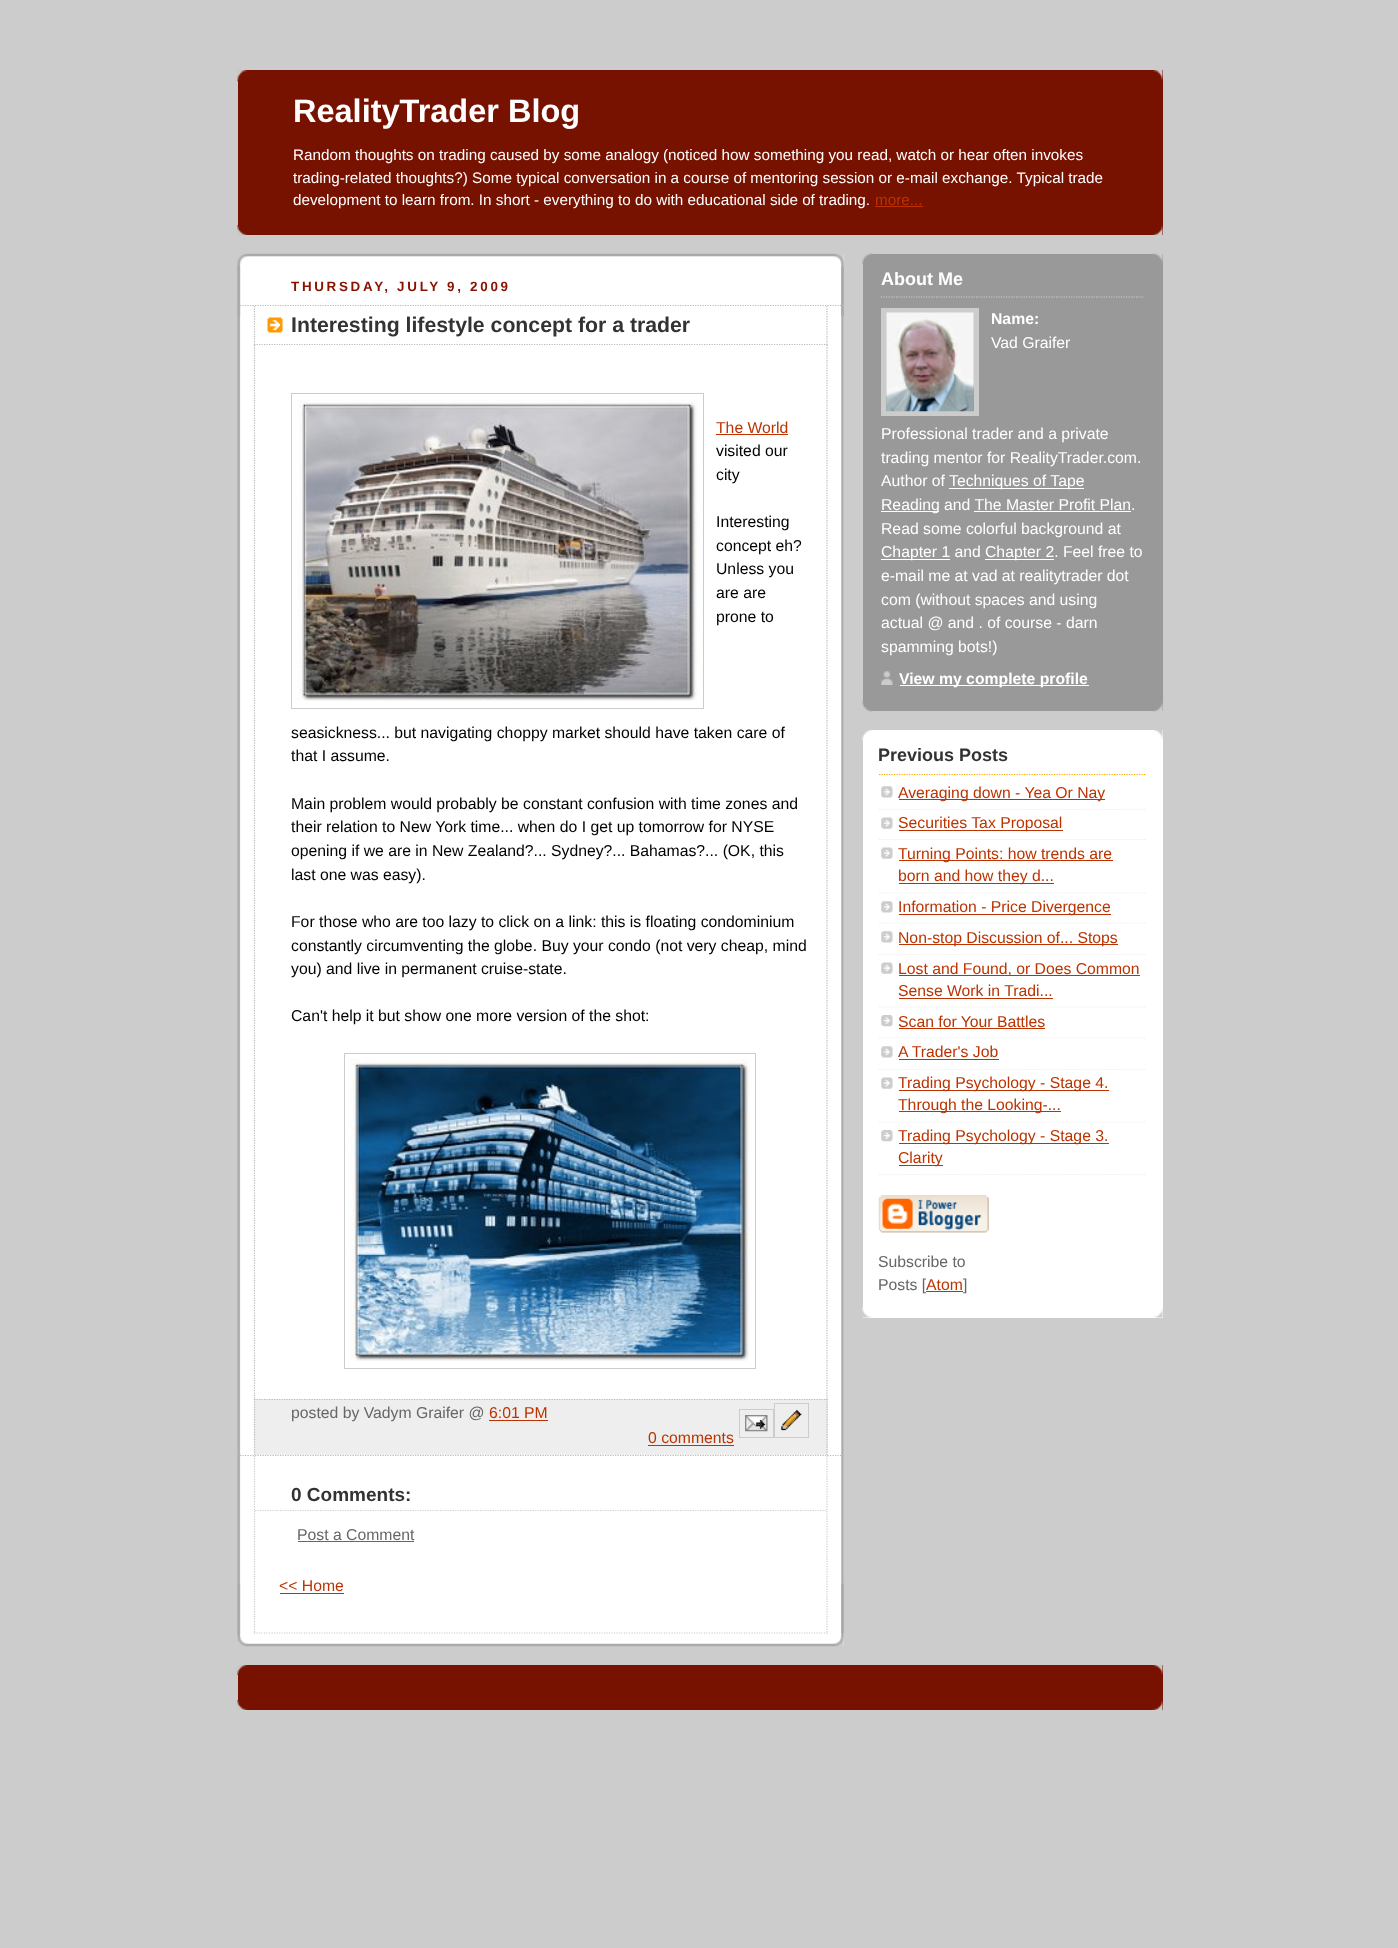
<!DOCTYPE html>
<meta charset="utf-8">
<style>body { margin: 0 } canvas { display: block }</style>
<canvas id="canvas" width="1398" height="1948"></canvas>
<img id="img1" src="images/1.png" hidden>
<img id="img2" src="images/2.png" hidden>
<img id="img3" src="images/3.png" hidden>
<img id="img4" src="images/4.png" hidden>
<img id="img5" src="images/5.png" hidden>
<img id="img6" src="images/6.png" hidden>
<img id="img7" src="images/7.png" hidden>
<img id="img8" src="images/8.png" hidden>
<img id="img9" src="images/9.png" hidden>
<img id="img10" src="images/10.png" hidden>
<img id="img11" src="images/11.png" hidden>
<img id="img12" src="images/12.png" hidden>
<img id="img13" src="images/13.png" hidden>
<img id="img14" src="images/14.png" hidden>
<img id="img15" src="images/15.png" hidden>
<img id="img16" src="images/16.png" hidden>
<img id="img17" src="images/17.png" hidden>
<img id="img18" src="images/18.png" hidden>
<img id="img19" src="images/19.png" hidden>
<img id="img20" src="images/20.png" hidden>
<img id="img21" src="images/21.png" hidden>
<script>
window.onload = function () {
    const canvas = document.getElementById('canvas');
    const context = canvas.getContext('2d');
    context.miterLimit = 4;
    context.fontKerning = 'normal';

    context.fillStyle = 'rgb(204, 204, 204)';
    context.fillRect(0, 0, 1398, 1948);
    context.fillStyle = 'rgb(119, 17, 0)';
    context.fillRect(238, 70, 925, 165);
    context.drawImage(document.getElementById('img1'), 237, 70, 926, 12);
    context.drawImage(document.getElementById('img2'), 237, 225, 926, 10);
    context.fillStyle = 'rgb(187, 51, 0)';
    context.fillRect(875, 206, 48, 1);
    context.fillStyle = 'rgb(255, 255, 255)';
    context.fillRect(239, 254, 605, 1392);
    context.drawImage(document.getElementById('img3'), 237, 1583, 607, 64);
    context.drawImage(document.getElementById('img4'), 237, 253, 607, 64);
    context.drawImage(document.getElementById('img5'), 237, 266, 607, 1368);
    context.beginPath();
    context.moveTo(237.5, 305.5);
    context.lineTo(844, 305.5);
    context.strokeStyle = 'rgb(187, 187, 187)';
    context.lineWidth = 1.2;
    context.setLineDash([1.25, 1.25]);
    context.stroke();
    context.beginPath();
    context.moveTo(237.5, 1455.5);
    context.lineTo(844, 1455.5);
    context.stroke();
    context.drawImage(document.getElementById('img6'), 267, 317, 16, 16);
    context.beginPath();
    context.moveTo(827, 306);
    context.lineTo(827, 345);
    context.stroke();
    context.beginPath();
    context.moveTo(254, 344.5);
    context.lineTo(827.5, 344.5);
    context.stroke();
    context.beginPath();
    context.moveTo(254.5, 306);
    context.lineTo(254.5, 345);
    context.stroke();
    context.beginPath();
    context.moveTo(827, 345);
    context.lineTo(827, 1399);
    context.stroke();
    context.beginPath();
    context.moveTo(254.5, 345);
    context.lineTo(254.5, 1399);
    context.stroke();
    context.strokeStyle = 'rgb(204, 204, 204)';
    context.lineWidth = 1;
    context.setLineDash([]);
    context.strokeRect(291.5, 393.5, 412, 315);
    context.drawImage(document.getElementById('img7'), 297, 399, 401, 302);
    context.fillStyle = 'rgb(187, 51, 0)';
    context.fillRect(716, 434, 72, 1);
    context.strokeRect(344.5, 1053.5, 411, 315);
    context.drawImage(document.getElementById('img8'), 350, 1059, 400, 302);
    context.fillStyle = 'rgb(238, 238, 238)';
    context.fillRect(254, 1399, 574, 56);
    context.beginPath();
    context.moveTo(254, 1399.5);
    context.lineTo(827.5, 1399.5);
    context.strokeStyle = 'rgb(187, 187, 187)';
    context.lineWidth = 1.2;
    context.setLineDash([1.25, 1.25]);
    context.stroke();
    context.beginPath();
    context.moveTo(827, 1399);
    context.lineTo(827, 1455);
    context.stroke();
    context.beginPath();
    context.moveTo(254.5, 1399);
    context.lineTo(254.5, 1455);
    context.stroke();
    context.fillStyle = 'rgb(187, 51, 0)';
    context.fillRect(489, 1420, 59, 1);
    context.strokeStyle = 'rgb(204, 204, 204)';
    context.lineWidth = 1;
    context.setLineDash([]);
    context.strokeRect(739.5, 1409.5, 34, 28);
    context.strokeRect(774.5, 1403.5, 34, 34);
    context.drawImage(document.getElementById('img9'), 745, 1415, 23, 17);
    context.drawImage(document.getElementById('img10'), 781, 1409, 21, 22);
    context.fillRect(648, 1445, 86, 1);
    context.beginPath();
    context.moveTo(827, 1456);
    context.lineTo(827, 1634);
    context.lineWidth = 1.2;
    context.setLineDash([1.25, 1.25]);
    context.stroke();
    context.beginPath();
    context.moveTo(254, 1633);
    context.lineTo(827.5, 1633);
    context.stroke();
    context.beginPath();
    context.moveTo(254.5, 1456);
    context.lineTo(254.5, 1634);
    context.stroke();
    context.beginPath();
    context.moveTo(255, 1510.5);
    context.lineTo(826, 1510.5);
    context.stroke();
    context.fillStyle = 'rgb(102, 102, 102)';
    context.fillRect(298, 1541, 116, 1);
    context.fillStyle = 'rgb(187, 51, 0)';
    context.fillRect(280, 1593, 64, 1);
    context.fillStyle = 'rgb(153, 153, 153)';
    context.fillRect(863, 254, 300, 457);
    context.drawImage(document.getElementById('img11'), 862, 701, 301, 11);
    context.drawImage(document.getElementById('img12'), 862, 253, 301, 11);
    context.beginPath();
    context.moveTo(881, 297);
    context.lineTo(1144, 297);
    context.stroke();
    context.lineWidth = 5;
    context.setLineDash([]);
    context.strokeRect(883.5, 310.5, 93, 103);
    context.drawImage(document.getElementById('img13'), 886, 312, 88, 100);
    context.fillStyle = 'rgb(255, 255, 255)';
    context.fillRect(949, 488, 135, 1);
    context.fillRect(881, 511, 58, 1);
    context.fillRect(974, 511, 157, 1);
    context.fillRect(881, 559, 69, 1);
    context.fillRect(985, 559, 69, 1);
    context.drawImage(document.getElementById('img14'), 881, 671, 12, 14);
    context.fillRect(900, 685, 189, 1);
    context.fillRect(863, 730, 300, 588);
    context.drawImage(document.getElementById('img15'), 862, 730, 301, 10);
    context.drawImage(document.getElementById('img16'), 862, 1307, 301, 11);
    context.beginPath();
    context.moveTo(879, 774.5);
    context.lineTo(1146, 774.5);
    context.strokeStyle = 'rgb(255, 170, 0)';
    context.lineWidth = 1.2;
    context.setLineDash([1.25, 1.25]);
    context.stroke();
    context.drawImage(document.getElementById('img17'), 881, 786, 12, 12);
    context.beginPath();
    context.moveTo(879, 809.5);
    context.lineTo(1146, 809.5);
    context.strokeStyle = 'rgb(238, 238, 238)';
    context.stroke();
    context.fillStyle = 'rgb(187, 51, 0)';
    context.fillRect(899, 799, 206, 1);
    context.drawImage(document.getElementById('img18'), 881, 817, 12, 12);
    context.beginPath();
    context.moveTo(879, 839.5);
    context.lineTo(1146, 839.5);
    context.stroke();
    context.fillRect(899, 830, 164, 1);
    context.drawImage(document.getElementById('img18'), 881, 847, 12, 12);
    context.beginPath();
    context.moveTo(879, 893);
    context.lineTo(1146, 893);
    context.stroke();
    context.fillRect(899, 860, 214, 1);
    context.fillRect(899, 883, 155, 1);
    context.drawImage(document.getElementById('img17'), 881, 901, 12, 12);
    context.beginPath();
    context.moveTo(879, 923);
    context.lineTo(1146, 923);
    context.stroke();
    context.fillRect(899, 914, 212, 1);
    context.drawImage(document.getElementById('img17'), 881, 931, 12, 12);
    context.beginPath();
    context.moveTo(879, 954.5);
    context.lineTo(1146, 954.5);
    context.stroke();
    context.fillRect(899, 944, 219, 1);
    context.drawImage(document.getElementById('img18'), 881, 962, 12, 12);
    context.beginPath();
    context.moveTo(879, 1007);
    context.lineTo(1146, 1007);
    context.stroke();
    context.fillRect(899, 975, 241, 1);
    context.fillRect(899, 998, 154, 1);
    context.drawImage(document.getElementById('img19'), 881, 1015, 12, 12);
    context.beginPath();
    context.moveTo(879, 1038);
    context.lineTo(1146, 1038);
    context.stroke();
    context.fillRect(899, 1028, 146, 1);
    context.drawImage(document.getElementById('img17'), 881, 1046, 12, 12);
    context.beginPath();
    context.moveTo(879, 1069.5);
    context.lineTo(1146, 1069.5);
    context.stroke();
    context.fillRect(899, 1059, 100, 1);
    context.drawImage(document.getElementById('img18'), 881, 1077, 12, 12);
    context.beginPath();
    context.moveTo(879, 1122);
    context.lineTo(1146, 1122);
    context.stroke();
    context.fillRect(899, 1090, 210, 1);
    context.fillRect(899, 1111, 162, 1);
    context.drawImage(document.getElementById('img19'), 881, 1130, 12, 12);
    context.beginPath();
    context.moveTo(879, 1174.5);
    context.lineTo(1146, 1174.5);
    context.stroke();
    context.fillRect(899, 1143, 210, 1);
    context.fillRect(899, 1165, 44, 1);
    context.drawImage(document.getElementById('img20'), 878, 1195, 111, 38);
    context.fillStyle = 'rgb(119, 17, 0)';
    context.fillRect(238, 1665, 925, 45);
    context.drawImage(document.getElementById('img21'), 237, 1665, 926, 10);
    context.drawImage(document.getElementById('img2'), 237, 1700, 926, 10);
    context.font = 'bold 32.5px Liberation Sans';
    context.fillStyle = 'rgb(255, 255, 255)';
    context.fillText('RealityTrader Blog', 293, 122);
    context.font = '15.28px Liberation Sans';
    context.fillText('Random thoughts on trading caused by some analogy (noticed how something you read, watch or hear often invokes', 293, 160);
    context.fillText('trading-related thoughts?) Some typical conversation in a course of mentoring session or e-mail exchange. Typical trade', 293, 183);
    context.fillText('development to learn from. In short - everything to do with educational side of trading.', 293, 205);
    context.fillStyle = 'rgb(187, 51, 0)';
    context.fillText('more...', 875, 205);
    context.letterSpacing = '2.7px';
    context.font = 'bold 13.4px Liberation Sans';
    context.fillStyle = 'rgb(136, 17, 0)';
    context.fillText('THURSDAY, JULY 9, 2009', 291, 291);
    context.letterSpacing = '0px';
    context.font = 'bold 21.25px Liberation Sans';
    context.fillStyle = 'rgb(51, 51, 51)';
    context.fillText('Interesting lifestyle concept for a trader', 291, 332);
    context.font = '15.75px Liberation Sans';
    context.fillStyle = 'rgb(187, 51, 0)';
    context.fillText('The World', 716, 433);
    context.fillStyle = 'rgb(0, 0, 0)';
    context.fillText('visited our', 716, 456);
    context.fillText('city', 716, 480);
    context.fillText('Interesting', 716, 527);
    context.fillText('concept eh?', 716, 551);
    context.fillText('Unless you', 716, 574);
    context.fillText('are are', 716, 598);
    context.fillText('prone to', 716, 622);
    context.fillText('seasickness... but navigating choppy market should have taken care of', 291, 738);
    context.fillText('that I assume.', 291, 761);
    context.fillText('Main problem would probably be constant confusion with time zones and', 291, 809);
    context.fillText('their relation to New York time... when do I get up tomorrow for NYSE', 291, 832);
    context.fillText('opening if we are in New Zealand?... Sydney?... Bahamas?... (OK, this', 291, 856);
    context.fillText('last one was easy).', 291, 880);
    context.fillText('For those who are too lazy to click on a link: this is floating condominium', 291, 927);
    context.fillText('constantly circumventing the globe. Buy your condo (not very cheap, mind', 291, 951);
    context.fillText('you) and live in permanent cruise-state.', 291, 974);
    context.fillText('Can\'t help it but show one more version of the shot:', 291, 1021);
    context.fillStyle = 'rgb(102, 102, 102)';
    context.fillText('posted by Vadym Graifer @', 291, 1418);
    context.fillStyle = 'rgb(187, 51, 0)';
    context.fillText('6:01 PM', 489, 1418);
    context.fillText('0 comments', 648, 1443);
    context.font = 'bold 19px Liberation Sans';
    context.fillStyle = 'rgb(51, 51, 51)';
    context.fillText('0 Comments:', 291, 1501);
    context.font = '15.75px Liberation Sans';
    context.fillStyle = 'rgb(102, 102, 102)';
    context.fillText('Post a Comment', 297, 1540);
    context.fillStyle = 'rgb(187, 51, 0)';
    context.fillText('<< Home', 279, 1591);
    context.font = 'bold 18px Liberation Sans';
    context.fillStyle = 'rgb(255, 255, 255)';
    context.fillText('About Me', 881, 285);
    context.font = 'bold 15.75px Liberation Sans';
    context.fillText('Name:', 991, 324);
    context.font = '15.75px Liberation Sans';
    context.fillText('Vad Graifer', 991, 348);
    context.fillText('Professional trader and a private', 881, 439);
    context.fillText('trading mentor for RealityTrader.com.', 881, 463);
    context.fillText('Author of', 881, 486);
    context.fillText('Techniques of Tape', 949, 486);
    context.fillText('Reading and The Master Profit Plan.', 881, 510);
    context.fillText('Read some colorful background at', 881, 534);
    context.fillText('Chapter 1 and', 881, 557);
    context.fillText('Chapter 2. Feel free to', 985, 557);
    context.fillText('e-mail me at vad at realitytrader dot', 881, 581);
    context.fillText('com (without spaces and using', 881, 605);
    context.fillText('actual @ and . of course - darn', 881, 628);
    context.fillText('spamming bots!)', 881, 652);
    context.font = 'bold 15.75px Liberation Sans';
    context.fillText('View my complete profile', 899, 684);
    context.font = 'bold 18px Liberation Sans';
    context.fillStyle = 'rgb(51, 51, 51)';
    context.fillText('Previous Posts', 878, 761);
    context.font = '15.75px Liberation Sans';
    context.fillStyle = 'rgb(187, 51, 0)';
    context.fillText('Averaging down - Yea Or Nay', 898, 798);
    context.fillText('Securities Tax Proposal', 898, 828);
    context.fillText('Turning Points: how trends are', 898, 859);
    context.fillText('born and how they d...', 898, 881);
    context.fillText('Information - Price Divergence', 898, 912);
    context.fillText('Non-stop Discussion of... Stops', 898, 943);
    context.fillText('Lost and Found, or Does Common', 898, 974);
    context.fillText('Sense Work in Tradi...', 898, 996);
    context.fillText('Scan for Your Battles', 898, 1027);
    context.fillText('A Trader\'s Job', 898, 1057);
    context.fillText('Trading Psychology - Stage 4.', 898, 1088);
    context.fillText('Through the Looking-...', 898, 1110);
    context.fillText('Trading Psychology - Stage 3.', 898, 1141);
    context.fillText('Clarity', 898, 1163);
    context.fillStyle = 'rgb(102, 102, 102)';
    context.fillText('Subscribe to', 878, 1267);
    context.fillText('Posts [', 878, 1290);
    context.fillStyle = 'rgb(187, 51, 0)';
    context.fillText('Atom', 926, 1290);
    context.fillRect(926, 1291, 37, 1);
    context.fillStyle = 'rgb(102, 102, 102)';
    context.fillText(']', 963, 1290);
};
</script>
